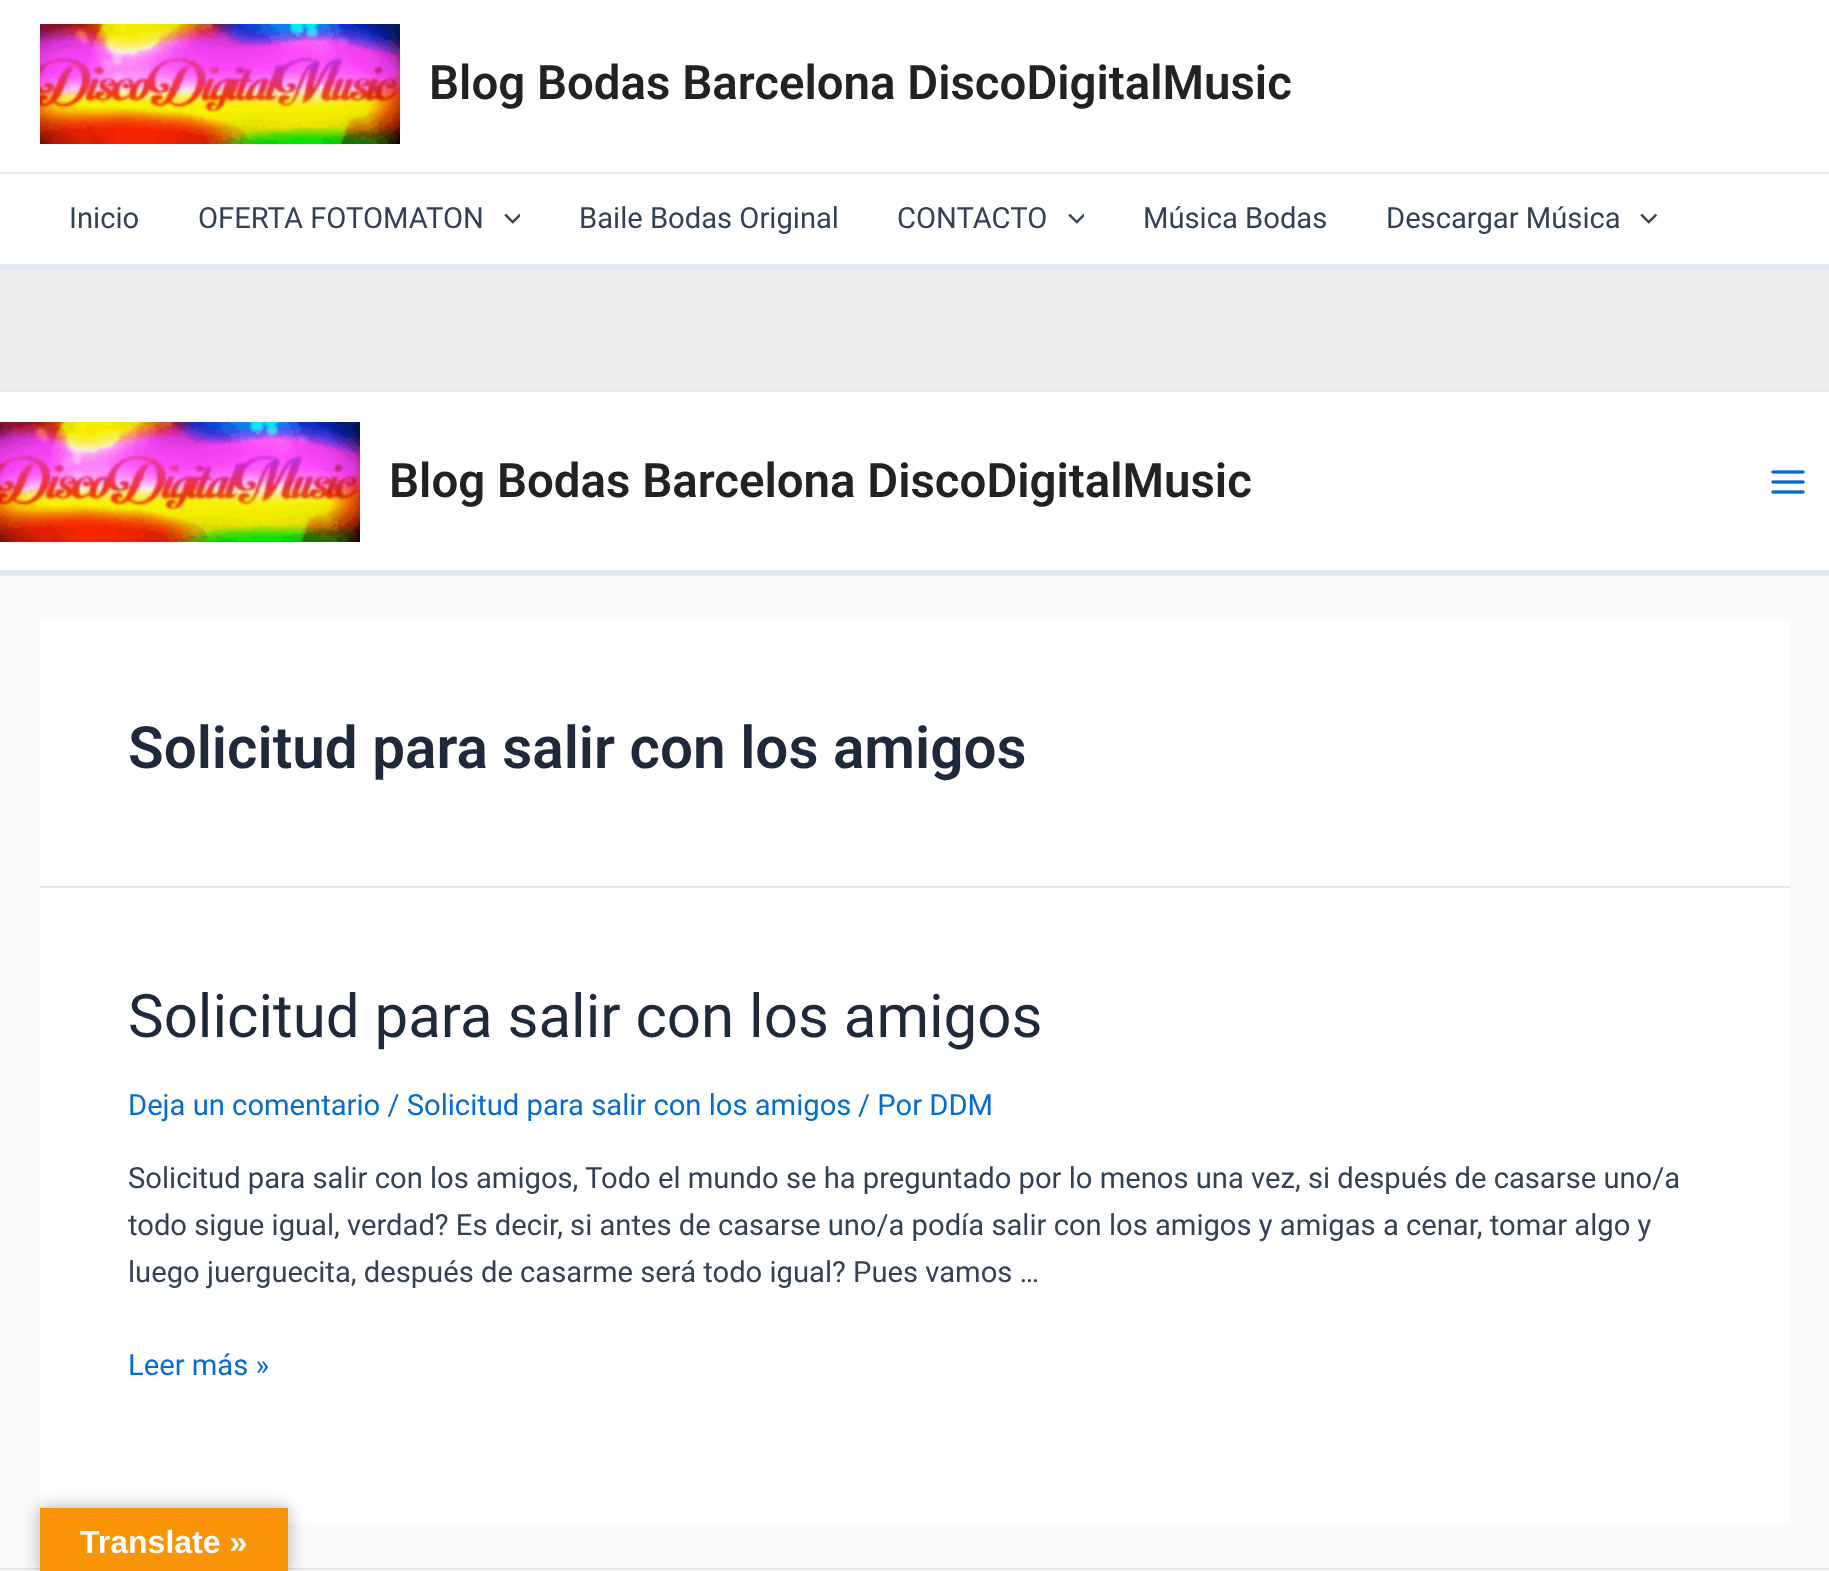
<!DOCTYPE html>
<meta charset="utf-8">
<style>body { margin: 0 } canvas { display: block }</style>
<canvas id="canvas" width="1829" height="1571"></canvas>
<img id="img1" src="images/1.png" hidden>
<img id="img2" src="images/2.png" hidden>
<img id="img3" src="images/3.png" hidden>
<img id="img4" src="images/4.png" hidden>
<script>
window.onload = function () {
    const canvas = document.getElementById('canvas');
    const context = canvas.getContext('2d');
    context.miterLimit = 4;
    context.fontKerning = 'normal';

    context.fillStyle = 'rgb(249, 250, 251)';
    context.fillRect(0, 0, 1829, 1571);
    context.fillStyle = 'rgb(255, 255, 255)';
    context.fillRect(0, 0, 1829, 172);
    context.fillStyle = 'rgb(234, 234, 234)';
    context.fillRect(0, 172, 1829, 2);
    context.drawImage(document.getElementById('img1'), 40, 24, 360, 120);
    context.fillStyle = 'rgb(255, 255, 255)';
    context.fillRect(0, 174, 1829, 90);
    context.fillStyle = 'rgb(226, 232, 240)';
    context.fillRect(0, 264, 1829, 6);
    context.drawImage(document.getElementById('img2'), 504, 213, 16, 11);
    context.drawImage(document.getElementById('img2'), 1068, 213, 16, 11);
    context.drawImage(document.getElementById('img3'), 1640, 213, 18, 11);
    context.fillStyle = 'rgb(238, 238, 238)';
    context.fillRect(0, 270, 1829, 120);
    context.fillStyle = 'rgb(234, 234, 234)';
    context.fillRect(0, 390, 1829, 2);
    context.fillStyle = 'rgb(255, 255, 255)';
    context.fillRect(0, 392, 1829, 178);
    context.fillStyle = 'rgb(226, 232, 240)';
    context.fillRect(0, 570, 1829, 6);
    context.drawImage(document.getElementById('img1'), 0, 422, 360, 120);
    context.drawImage(document.getElementById('img4'), 1771, 470, 34, 24);
    context.fillStyle = 'rgb(255, 255, 255)';
    context.fillRect(40, 620, 1750, 266);
    context.fillStyle = 'rgb(226, 232, 240)';
    context.fillRect(40, 886, 1750, 2);
    context.fillStyle = 'rgb(255, 255, 255)';
    context.fillRect(40, 888, 1750, 636);
    context.fillRect(0, 1570, 1829, 1);
    context.fillStyle = 'rgb(226, 232, 240)';
    context.fillRect(0, 1568, 1829, 2);
    context.fillStyle = 'rgba(0, 0, 0, 0.3)';
    context.filter = 'blur(9px)';
    context.beginPath();
    context.rect(40, 1508, 248, 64);
    context.fill();
    context.filter = 'none';
    context.fillStyle = 'rgb(248, 148, 6)';
    context.fillRect(40, 1508, 248, 63);
    context.font = '600 47.4px Roboto';
    context.fillStyle = 'rgb(34, 34, 34)';
    context.fillText('Blog Bodas Barcelona DiscoDigitalMusic', 429, 99);
    context.font = '29.18px Roboto';
    context.fillStyle = 'rgb(51, 65, 85)';
    context.fillText('Inicio', 69, 228);
    context.fillText('OFERTA FOTOMATON', 198, 228);
    context.fillText('Baile Bodas Original', 579, 228);
    context.fillText('CONTACTO', 897, 228);
    context.fillText('Música Bodas', 1143, 228);
    context.fillText('Descargar Música', 1386, 228);
    context.font = '600 47.4px Roboto';
    context.fillStyle = 'rgb(34, 34, 34)';
    context.fillText('Blog Bodas Barcelona DiscoDigitalMusic', 389, 497);
    context.font = '600 58.4px Roboto';
    context.fillStyle = 'rgb(30, 41, 59)';
    context.fillText('Solicitud para salir con los amigos', 128, 768);
    context.font = '60px Roboto';
    context.fillText('Solicitud para salir con los amigos', 128, 1037);
    context.font = '29.18px Roboto';
    context.fillStyle = 'rgb(4, 107, 210)';
    context.fillText('Deja un comentario / Solicitud para salir con los amigos', 128, 1115);
    context.fillText('/ Por DDM', 858, 1115);
    context.fillStyle = 'rgb(51, 65, 85)';
    context.fillText('Solicitud para salir con los amigos, Todo el mundo se ha preguntado por lo menos una vez, si después de casarse uno/a', 128, 1188);
    context.fillText('todo sigue igual, verdad? Es decir, si antes de casarse uno/a podía salir con los amigos y amigas a cenar, tomar algo y', 128, 1235);
    context.fillText('luego juerguecita, después de casarme será todo igual? Pues vamos …', 128, 1282);
    context.fillStyle = 'rgb(4, 107, 210)';
    context.fillText('Leer más »', 128, 1375);
    context.font = 'bold 32px Liberation Sans';
    context.fillStyle = 'rgb(255, 255, 255)';
    context.fillText('Translate »', 80, 1553);
};
</script>
